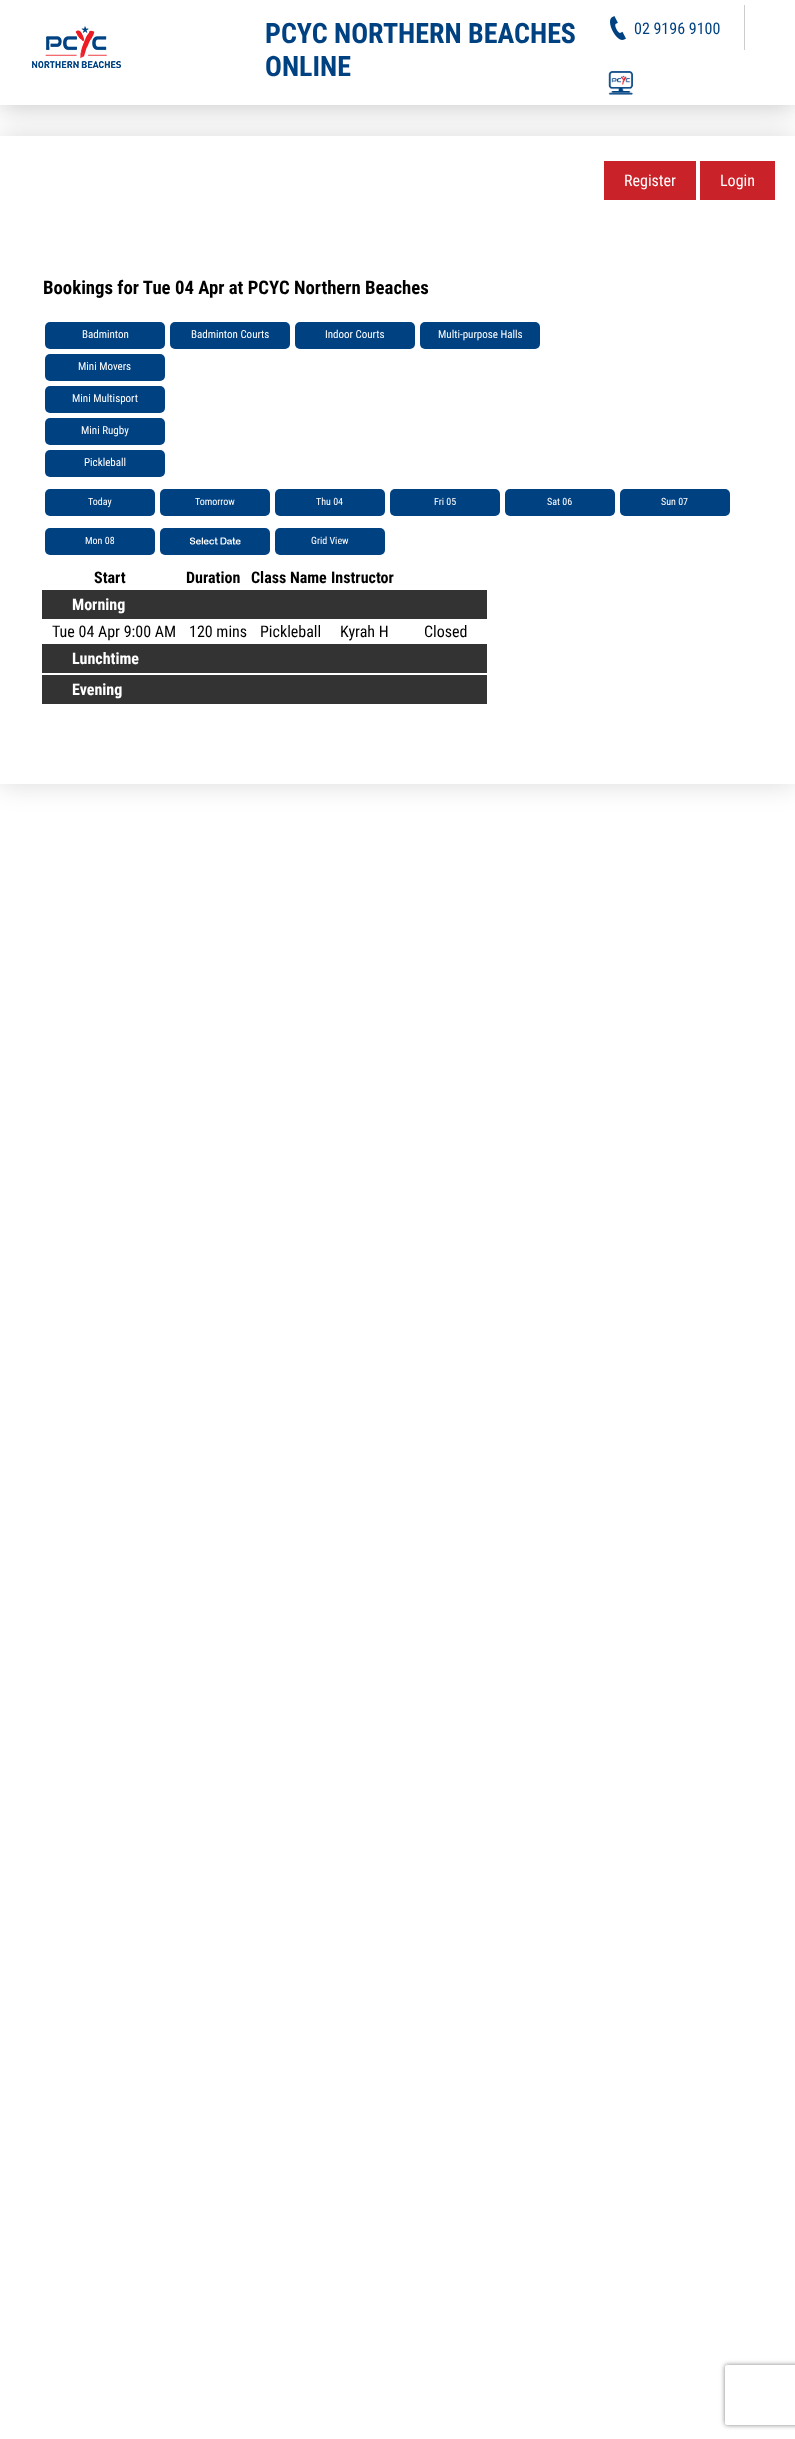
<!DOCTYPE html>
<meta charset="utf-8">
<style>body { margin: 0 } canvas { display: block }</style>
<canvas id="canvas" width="795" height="2439"></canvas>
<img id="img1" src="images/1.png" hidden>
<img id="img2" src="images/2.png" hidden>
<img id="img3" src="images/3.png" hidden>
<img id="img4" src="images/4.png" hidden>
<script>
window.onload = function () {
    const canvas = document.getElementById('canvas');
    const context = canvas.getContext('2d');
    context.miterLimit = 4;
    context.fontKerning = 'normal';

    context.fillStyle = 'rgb(255, 255, 255)';
    context.fillRect(0, 0, 795, 2439);
    context.save();
    context.beginPath();
    context.moveTo(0, 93);
    context.lineTo(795, 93);
    context.lineTo(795, 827);
    context.lineTo(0, 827);
    context.closePath();
    context.moveTo(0, 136);
    context.lineTo(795, 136);
    context.lineTo(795, 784);
    context.lineTo(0, 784);
    context.closePath();
    context.clip('evenodd');
    context.fillStyle = 'rgba(0, 0, 0, 0.15)';
    context.filter = 'blur(14px)';
    context.beginPath();
    context.rect(0, 136, 795, 648);
    context.fill();
    context.filter = 'none';
    context.restore();
    context.fillStyle = 'rgba(0, 0, 0, 0.25)';
    context.filter = 'blur(14px)';
    context.beginPath();
    context.rect(0, 0, 795, 105);
    context.fill();
    context.filter = 'none';
    context.fillStyle = 'rgb(255, 255, 255)';
    context.fillRect(0, 0, 795, 105);
    context.drawImage(document.getElementById('img1'), 32, 26, 89, 42);
    context.fillStyle = 'rgb(204, 204, 204)';
    context.fillRect(744, 5, 1, 45);
    context.drawImage(document.getElementById('img2'), 610, 16, 16, 24);
    context.drawImage(document.getElementById('img3'), 608, 71, 25, 24);
    context.fillStyle = 'rgb(201, 34, 41)';
    context.fillRect(604, 161, 92, 39);
    context.fillRect(700, 161, 75, 39);
    context.fillStyle = 'rgb(0, 65, 129)';
    context.beginPath();
    context.roundRect(45, 322, 120, 27, 5);
    context.fill();
    context.beginPath();
    context.roundRect(45, 354, 120, 27, 5);
    context.fill();
    context.beginPath();
    context.roundRect(45, 386, 120, 27, 5);
    context.fill();
    context.beginPath();
    context.roundRect(45, 418, 120, 27, 5);
    context.fill();
    context.beginPath();
    context.roundRect(45, 450, 120, 27, 5);
    context.fill();
    context.beginPath();
    context.roundRect(170, 322, 120, 27, 5);
    context.fill();
    context.beginPath();
    context.roundRect(295, 322, 120, 27, 5);
    context.fill();
    context.beginPath();
    context.roundRect(420, 322, 120, 27, 5);
    context.fill();
    context.beginPath();
    context.roundRect(45, 489, 110, 27, 5);
    context.fill();
    context.beginPath();
    context.roundRect(160, 489, 110, 27, 5);
    context.fill();
    context.beginPath();
    context.roundRect(275, 489, 110, 27, 5);
    context.fill();
    context.beginPath();
    context.roundRect(390, 489, 110, 27, 5);
    context.fill();
    context.beginPath();
    context.roundRect(505, 489, 110, 27, 5);
    context.fill();
    context.beginPath();
    context.roundRect(620, 489, 110, 27, 5);
    context.fill();
    context.beginPath();
    context.roundRect(45, 528, 110, 27, 5);
    context.fill();
    context.beginPath();
    context.roundRect(160, 528, 110, 27, 5);
    context.fill();
    context.drawImage(document.getElementById('img4'), 189, 537, 52, 8);
    context.beginPath();
    context.roundRect(275, 528, 110, 27, 5);
    context.fill();
    context.fillStyle = 'rgb(51, 51, 51)';
    context.fillRect(42, 590, 445, 29);
    context.fillRect(42, 644, 445, 29);
    context.fillRect(42, 675, 445, 29);
    context.save();
    context.beginPath();
    context.moveTo(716, 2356);
    context.lineTo(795, 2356);
    context.lineTo(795, 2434);
    context.lineTo(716, 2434);
    context.closePath();
    context.moveTo(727, 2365);
    context.lineTo(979, 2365);
    context.bezierCurveTo(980, 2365, 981, 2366, 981, 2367);
    context.lineTo(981, 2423);
    context.bezierCurveTo(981, 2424, 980, 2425, 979, 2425);
    context.lineTo(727, 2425);
    context.bezierCurveTo(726, 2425, 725, 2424, 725, 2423);
    context.lineTo(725, 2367);
    context.bezierCurveTo(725, 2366, 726, 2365, 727, 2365);
    context.closePath();
    context.clip('evenodd');
    context.fillStyle = 'rgb(128, 128, 128)';
    context.filter = 'blur(2.5px)';
    context.beginPath();
    context.roundRect(725, 2365, 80, 60, 2);
    context.fill();
    context.filter = 'none';
    context.restore();
    context.font = 'bold 28px Roboto Condensed';
    context.fillStyle = 'rgb(0, 65, 129)';
    context.fillText('PCYC NORTHERN BEACHES', 265, 43);
    context.fillText('ONLINE', 265, 76);
    context.font = '16px Roboto Condensed';
    context.fillText('02 9196 9100', 634, 34);
    context.fillStyle = 'rgb(255, 255, 255)';
    context.fillText('Register', 624, 186);
    context.fillText('Login', 720, 186);
    context.font = 'bold 18.75px Roboto Condensed';
    context.fillStyle = 'rgb(0, 0, 0)';
    context.fillText('Bookings for Tue 04 Apr at PCYC Northern Beaches', 43, 294);
    context.font = '11px Roboto Condensed';
    context.fillStyle = 'rgb(255, 255, 255)';
    context.fillText('Badminton', 82, 338);
    context.fillText('Mini Movers', 78, 370);
    context.fillText('Mini Multisport', 72, 402);
    context.fillText('Mini Rugby', 81, 434);
    context.fillText('Pickleball', 84, 466);
    context.fillText('Badminton Courts', 191, 338);
    context.fillText('Indoor Courts', 325, 338);
    context.fillText('Multi-purpose Halls', 438, 338);
    context.font = '10px Roboto Condensed';
    context.fillText('Today', 88, 505);
    context.fillText('Tomorrow', 195, 505);
    context.fillText('Thu 04', 316, 505);
    context.fillText('Fri 05', 434, 505);
    context.fillText('Sat 06', 547, 505);
    context.fillText('Sun 07', 661, 505);
    context.fillText('Mon 08', 85, 544);
    context.fillText('Grid View', 311, 544);
    context.font = 'bold 16px Roboto Condensed';
    context.fillStyle = 'rgb(0, 0, 0)';
    context.fillText('Start', 94, 583);
    context.fillText('Duration', 186, 583);
    context.fillText('Class Name', 251, 583);
    context.fillText('Instructor', 331, 583);
    context.fillStyle = 'rgb(255, 255, 255)';
    context.fillText('Morning', 72, 610);
    context.font = '16px Roboto Condensed';
    context.fillStyle = 'rgb(0, 0, 0)';
    context.fillText('Tue 04 Apr 9:00 AM', 52, 637);
    context.fillText('120 mins', 189, 637);
    context.fillText('Pickleball', 260, 637);
    context.fillText('Kyrah H', 340, 637);
    context.fillText('Closed', 424, 637);
    context.font = 'bold 16px Roboto Condensed';
    context.fillStyle = 'rgb(255, 255, 255)';
    context.fillText('Lunchtime', 72, 664);
    context.fillText('Evening', 72, 695);
};
</script>
